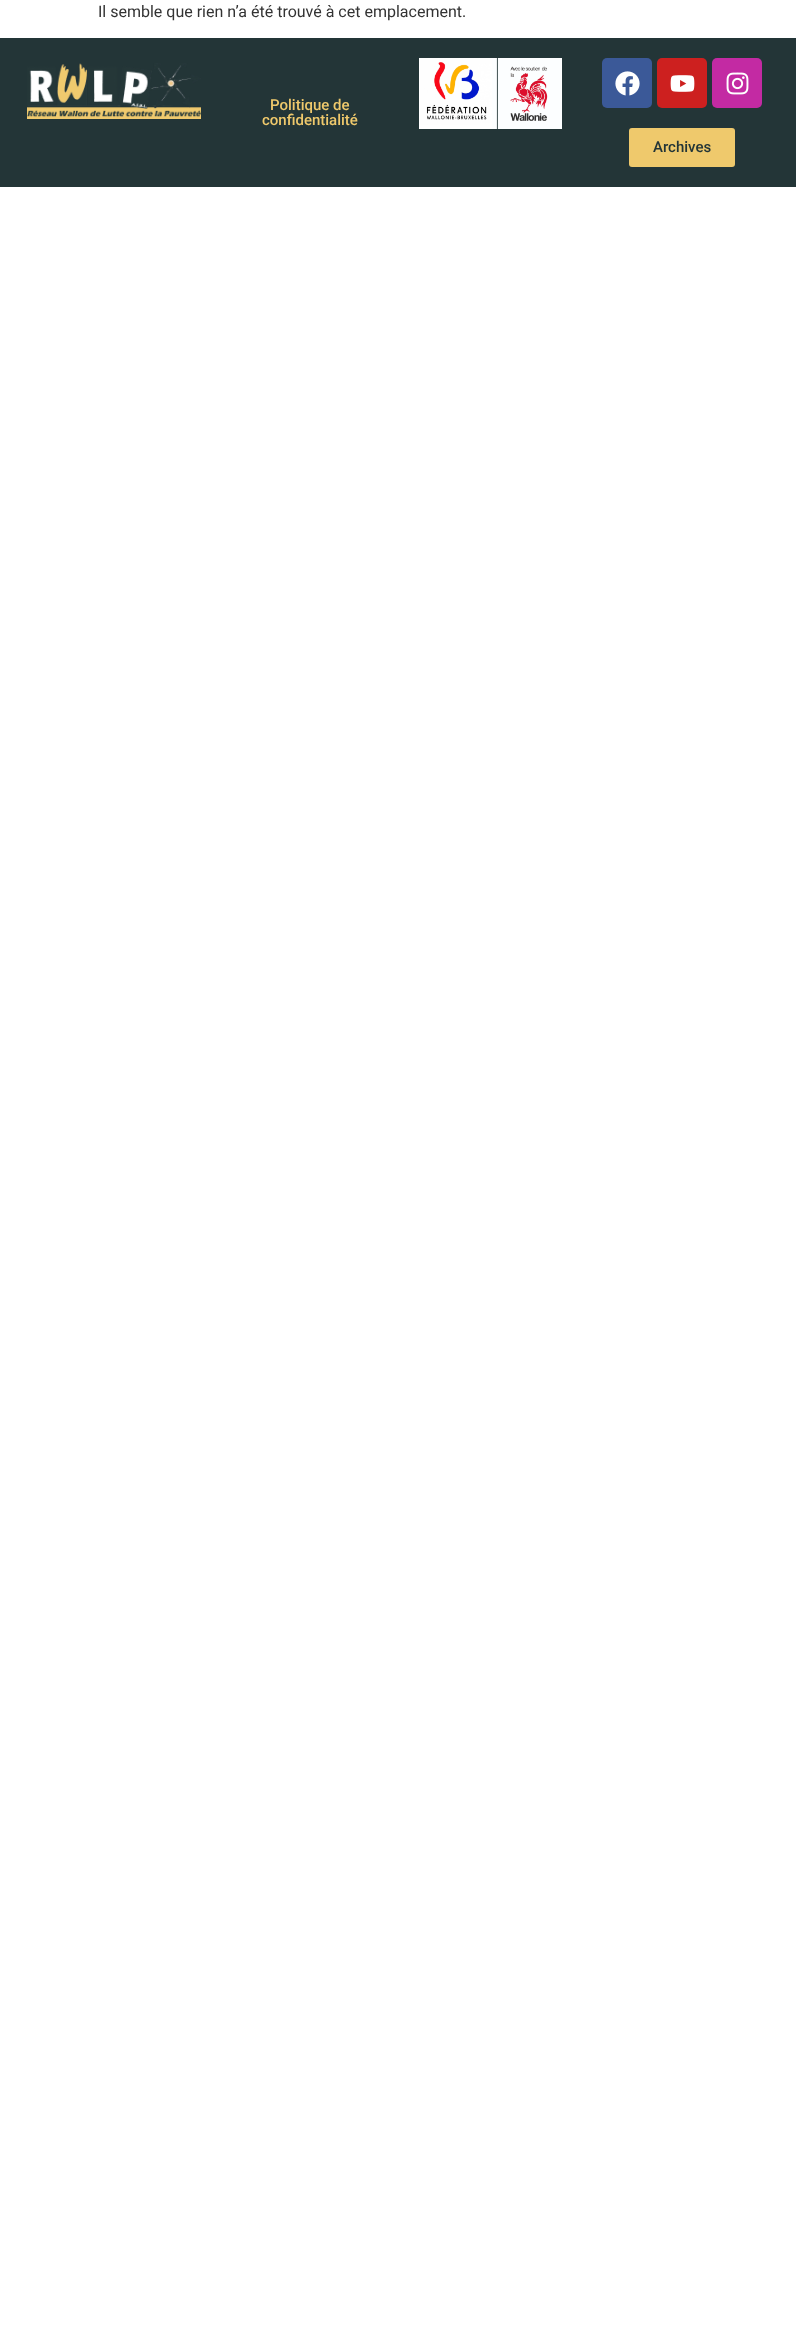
<!DOCTYPE html>
<meta charset="utf-8">
<style>body { margin: 0 } canvas { display: block }</style>
<canvas id="canvas" width="796" height="2349"></canvas>
<img id="img1" src="images/1.png" hidden>
<img id="img2" src="images/2.png" hidden>
<img id="img3" src="images/3.png" hidden>
<img id="img4" src="images/4.png" hidden>
<img id="img5" src="images/5.png" hidden>
<script>
window.onload = function () {
    const canvas = document.getElementById('canvas');
    const context = canvas.getContext('2d');
    context.miterLimit = 4;
    context.fontKerning = 'normal';

    context.fillStyle = 'rgb(255, 255, 255)';
    context.fillRect(0, 0, 796, 2349);
    context.fillStyle = 'rgb(35, 53, 55)';
    context.fillRect(0, 38, 796, 149);
    context.drawImage(document.getElementById('img1'), 27, 63, 174, 56);
    context.drawImage(document.getElementById('img2'), 419, 58, 143, 71);
    context.fillStyle = 'rgb(59, 89, 152)';
    context.beginPath();
    context.roundRect(602, 58, 50, 50, 5);
    context.fill();
    context.drawImage(document.getElementById('img3'), 615, 71, 25, 25);
    context.fillStyle = 'rgb(205, 32, 31)';
    context.beginPath();
    context.roundRect(657, 58, 50, 50, 5);
    context.fill();
    context.drawImage(document.getElementById('img4'), 670, 75, 25, 17);
    context.fillStyle = 'rgb(195, 42, 163)';
    context.beginPath();
    context.roundRect(712, 58, 50, 50, 5);
    context.fill();
    context.drawImage(document.getElementById('img5'), 726, 72, 23, 23);
    context.fillStyle = 'rgb(239, 201, 108)';
    context.beginPath();
    context.roundRect(629, 128, 106, 39, 3);
    context.fill();
    context.font = '16px Roboto';
    context.fillStyle = 'rgb(51, 51, 51)';
    context.fillText('Il semble que rien n’a été trouvé à cet emplacement.', 98, 17);
    context.font = '500 15px Roboto';
    context.fillStyle = 'rgb(239, 201, 108)';
    context.fillText('Politique de', 270, 110);
    context.fillText('confidentialité', 262, 125);
    context.fillStyle = 'rgb(35, 53, 55)';
    context.fillText('Archives', 653, 152);
};
</script>
